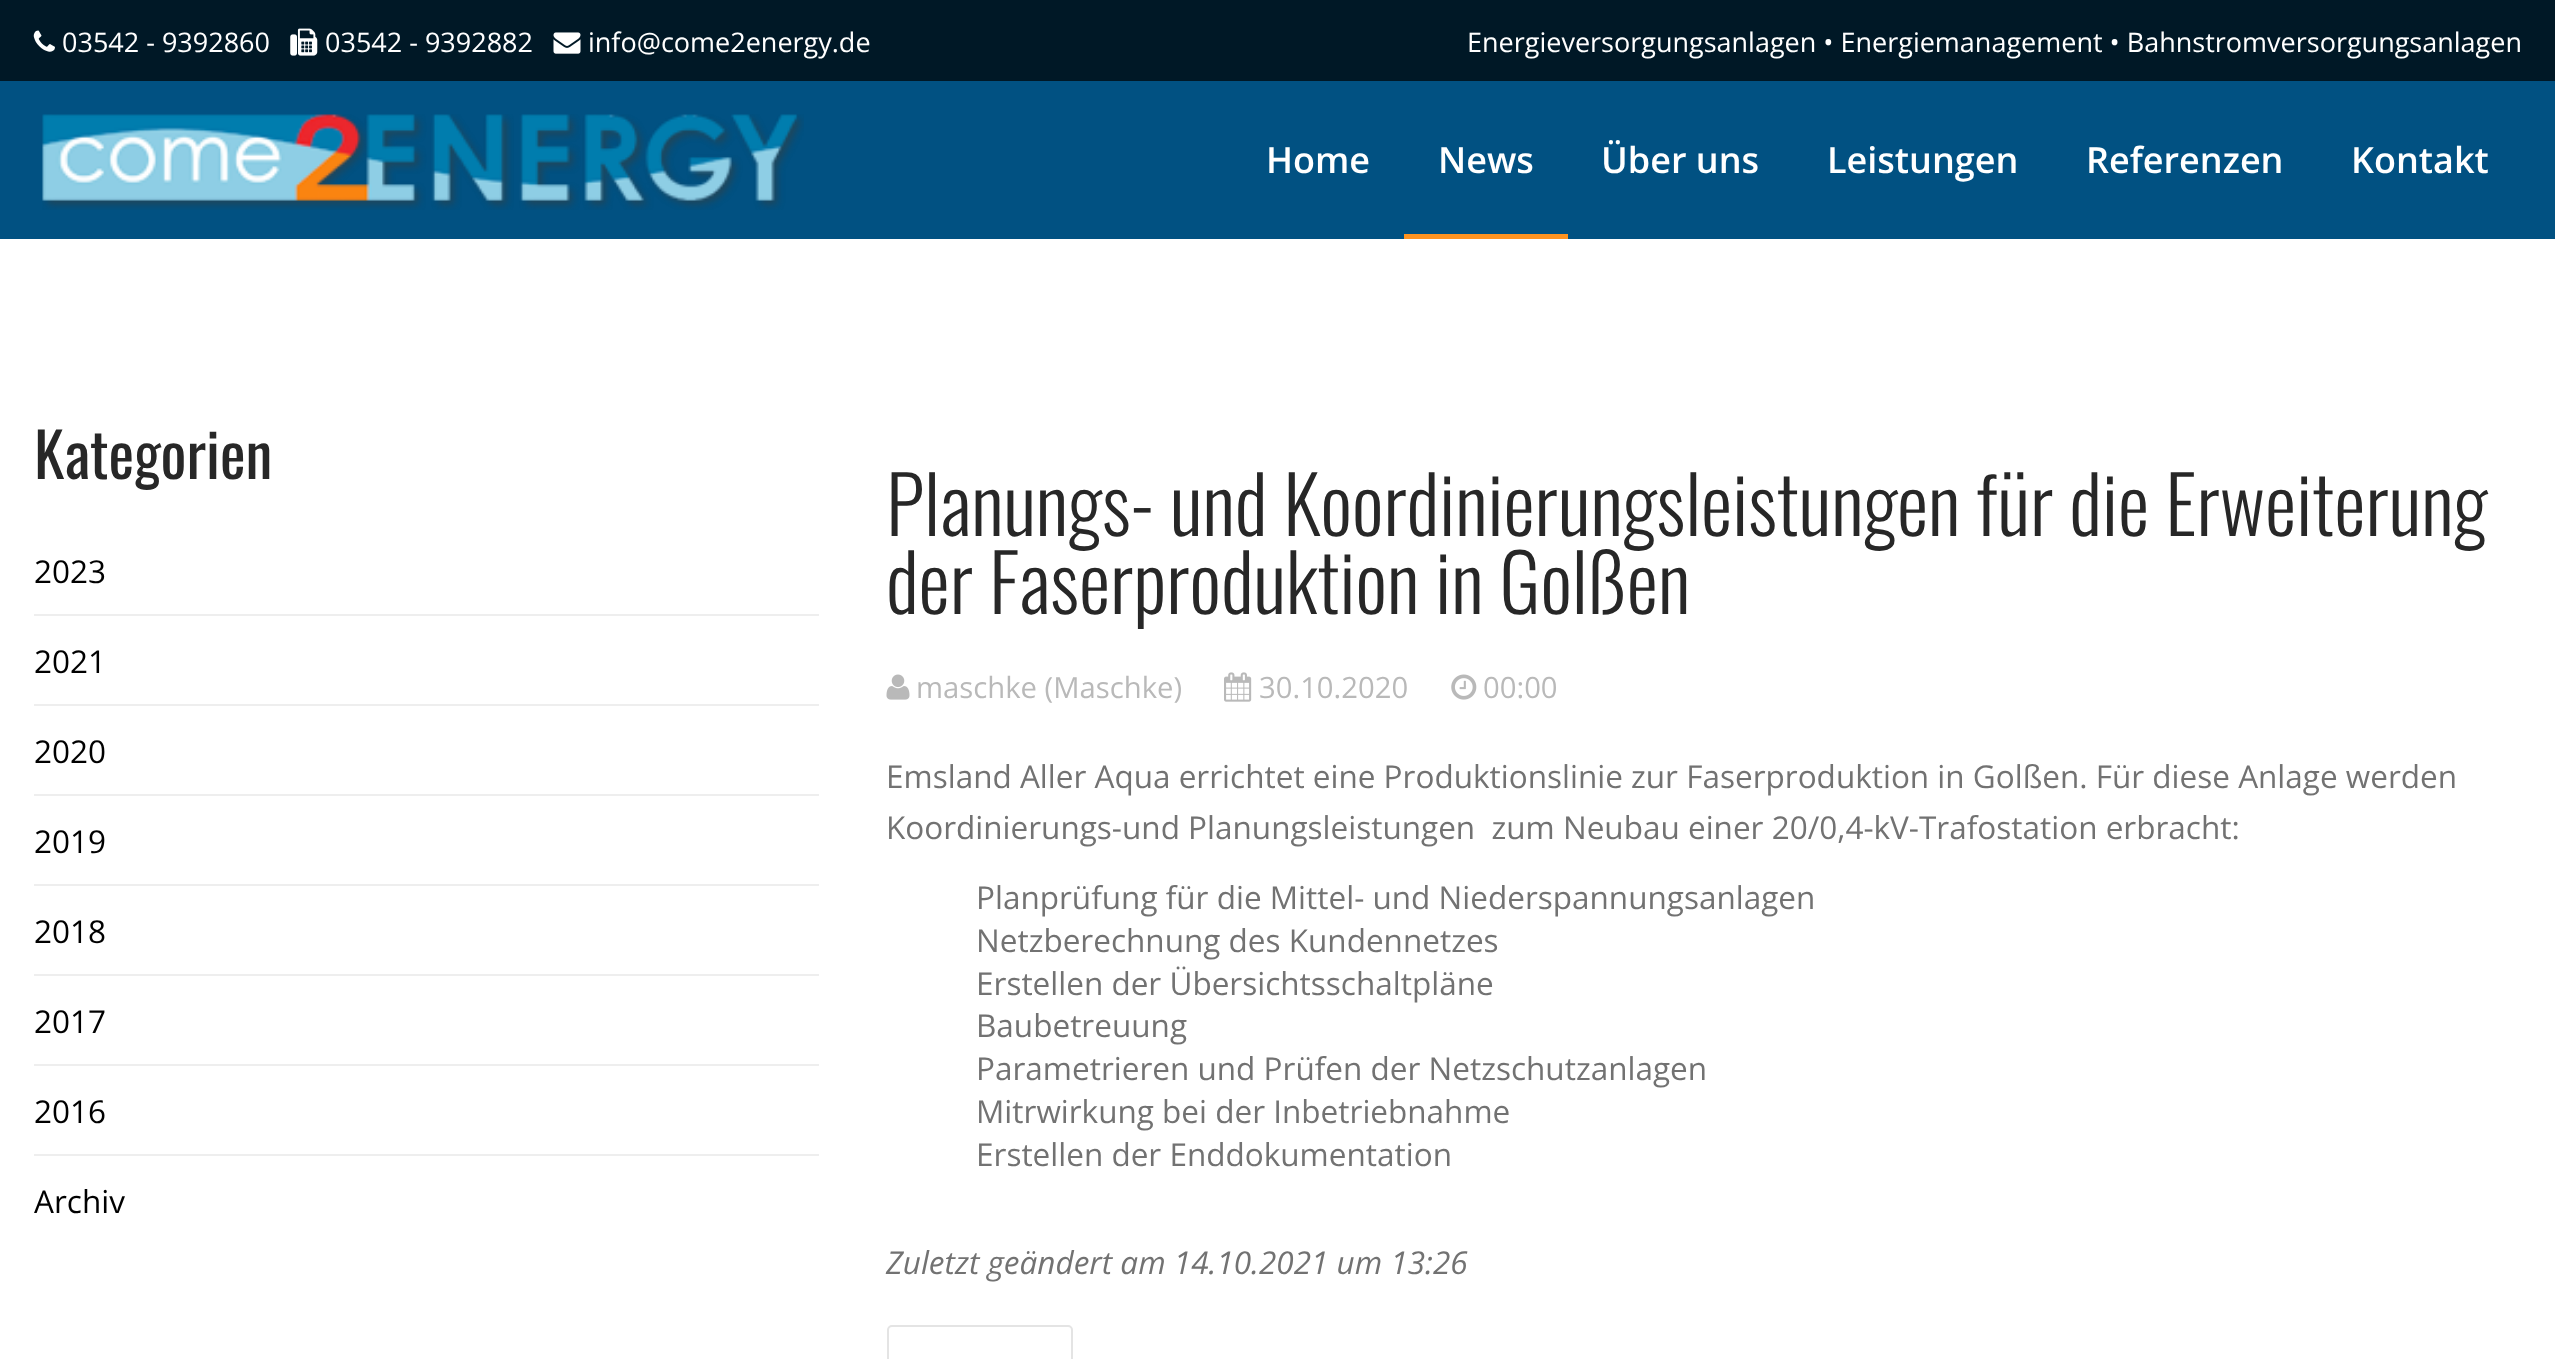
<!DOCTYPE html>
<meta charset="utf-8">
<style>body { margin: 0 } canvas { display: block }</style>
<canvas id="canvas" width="2555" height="1359"></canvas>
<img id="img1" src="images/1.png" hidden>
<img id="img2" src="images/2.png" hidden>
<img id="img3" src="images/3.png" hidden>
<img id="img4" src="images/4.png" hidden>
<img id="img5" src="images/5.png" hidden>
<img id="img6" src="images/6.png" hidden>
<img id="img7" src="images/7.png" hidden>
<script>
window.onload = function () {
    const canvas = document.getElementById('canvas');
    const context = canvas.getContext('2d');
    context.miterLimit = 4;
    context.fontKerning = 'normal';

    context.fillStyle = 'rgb(255, 255, 255)';
    context.fillRect(0, 0, 2555, 1359);
    context.fillStyle = 'rgb(0, 24, 38)';
    context.fillRect(0, 0, 2555, 81);
    context.drawImage(document.getElementById('img1'), 33, 30, 22, 22);
    context.drawImage(document.getElementById('img2'), 290, 28, 28, 28);
    context.drawImage(document.getElementById('img3'), 553, 32, 28, 22);
    context.fillStyle = 'rgb(1, 81, 130)';
    context.fillRect(0, 81, 2555, 158);
    context.drawImage(document.getElementById('img4'), 42, 114, 762, 96);
    context.fillStyle = 'rgb(255, 147, 32)';
    context.fillRect(1404, 234, 164, 5);
    context.fillStyle = 'rgb(238, 238, 238)';
    context.fillRect(34, 614, 785, 2);
    context.fillRect(34, 704, 785, 2);
    context.fillRect(34, 794, 785, 2);
    context.fillRect(34, 884, 785, 2);
    context.fillRect(34, 974, 785, 2);
    context.fillRect(34, 1064, 785, 2);
    context.fillRect(34, 1154, 785, 2);
    context.drawImage(document.getElementById('img5'), 886, 674, 24, 26);
    context.drawImage(document.getElementById('img6'), 1224, 672, 28, 30);
    context.drawImage(document.getElementById('img7'), 1451, 674, 26, 26);
    context.beginPath();
    context.roundRect(888, 1326, 184, 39, 4);
    context.strokeStyle = 'rgb(228, 228, 228)';
    context.lineWidth = 2;
    context.stroke();
    context.font = '27px Open Sans';
    context.fillStyle = 'rgb(255, 255, 255)';
    context.fillText('03542 - 9392860', 62, 52);
    context.fillText('03542 - 9392882', 325, 52);
    context.fillText('info@come2energy.de', 588, 52);
    context.fillText('Energieversorgungsanlagen • Energiemanagement • Bahnstromversorgungsanlagen', 1467, 52);
    context.font = '600 36px Open Sans';
    context.fillText('Home', 1266, 173);
    context.fillText('News', 1438, 173);
    context.fillText('Über uns', 1601, 173);
    context.fillText('Leistungen', 1827, 173);
    context.fillText('Referenzen', 2086, 173);
    context.fillText('Kontakt', 2351, 173);
    context.font = '61px Oswald';
    context.fillStyle = 'rgb(39, 39, 39)';
    context.fillText('Kategorien', 34, 479);
    context.font = '31.5px Open Sans';
    context.fillStyle = 'rgb(0, 0, 0)';
    context.fillText('2023', 34, 583);
    context.fillText('2021', 34, 673);
    context.fillText('2020', 34, 763);
    context.fillText('2019', 34, 853);
    context.fillText('2018', 34, 943);
    context.fillText('2017', 34, 1033);
    context.fillText('2016', 34, 1123);
    context.fillText('Archiv', 34, 1213);
    context.font = '300 78.75px Oswald';
    context.fillStyle = 'rgb(39, 39, 39)';
    context.fillText('Planungs- und Koordinierungsleistungen für die Erweiterung', 886, 536);
    context.fillText('der Faserproduktion in Golßen', 886, 614);
    context.font = '29.25px Open Sans';
    context.fillStyle = 'rgb(185, 185, 185)';
    context.fillText('maschke (Maschke)', 916, 698);
    context.fillText('30.10.2020', 1259, 698);
    context.fillText('00:00', 1483, 698);
    context.font = '31.5px Open Sans';
    context.fillStyle = 'rgb(114, 114, 114)';
    context.fillText('Emsland Aller Aqua errichtet eine Produktionslinie zur Faserproduktion in Golßen. Für diese Anlage werden', 886, 788);
    context.fillText('Koordinierungs-und Planungsleistungen  zum Neubau einer 20/0,4-kV-Trafostation erbracht:', 886, 839);
    context.fillText('Planprüfung für die Mittel- und Niederspannungsanlagen', 976, 909);
    context.fillText('Netzberechnung des Kundennetzes', 976, 952);
    context.fillText('Erstellen der Übersichtsschaltpläne', 976, 995);
    context.fillText('Baubetreuung', 976, 1037);
    context.fillText('Parametrieren und Prüfen der Netzschutzanlagen', 976, 1080);
    context.fillText('Mitrwirkung bei der Inbetriebnahme', 976, 1123);
    context.fillText('Erstellen der Enddokumentation', 976, 1166);
    context.font = 'italic 31.5px Open Sans';
    context.fillText('Zuletzt geändert am 14.10.2021 um 13:26', 886, 1274);
};
</script>
